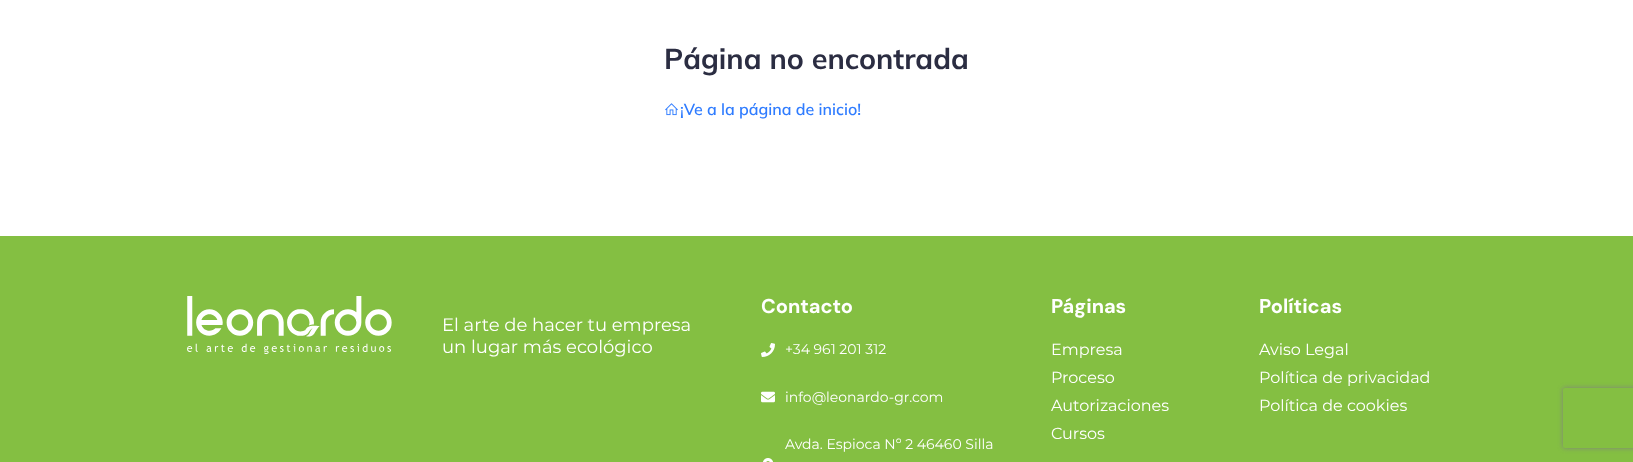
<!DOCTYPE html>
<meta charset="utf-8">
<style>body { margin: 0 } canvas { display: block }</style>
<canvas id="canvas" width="1633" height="462"></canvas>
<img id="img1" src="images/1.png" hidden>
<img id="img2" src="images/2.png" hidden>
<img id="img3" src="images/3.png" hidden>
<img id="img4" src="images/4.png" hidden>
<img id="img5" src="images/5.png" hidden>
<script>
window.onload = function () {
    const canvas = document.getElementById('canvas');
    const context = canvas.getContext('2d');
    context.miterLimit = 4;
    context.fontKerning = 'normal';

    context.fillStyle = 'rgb(255, 255, 255)';
    context.fillRect(0, 0, 1633, 462);
    context.drawImage(document.getElementById('img1'), 665, 103, 13, 13);
    context.fillStyle = 'rgb(132, 191, 66)';
    context.fillRect(0, 236, 1633, 226);
    context.drawImage(document.getElementById('img2'), 187, 296, 205, 58);
    context.drawImage(document.getElementById('img3'), 761, 343, 14, 14);
    context.drawImage(document.getElementById('img4'), 761, 391, 14, 12);
    context.drawImage(document.getElementById('img5'), 763, 458, 10, 4);
    context.save();
    context.beginPath();
    context.moveTo(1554, 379);
    context.lineTo(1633, 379);
    context.lineTo(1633, 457);
    context.lineTo(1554, 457);
    context.closePath();
    context.moveTo(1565, 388);
    context.lineTo(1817, 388);
    context.bezierCurveTo(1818, 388, 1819, 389, 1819, 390);
    context.lineTo(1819, 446);
    context.bezierCurveTo(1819, 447, 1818, 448, 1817, 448);
    context.lineTo(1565, 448);
    context.bezierCurveTo(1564, 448, 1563, 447, 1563, 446);
    context.lineTo(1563, 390);
    context.bezierCurveTo(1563, 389, 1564, 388, 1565, 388);
    context.closePath();
    context.clip('evenodd');
    context.fillStyle = 'rgb(128, 128, 128)';
    context.filter = 'blur(2.5px)';
    context.beginPath();
    context.roundRect(1563, 388, 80, 60, 2);
    context.fill();
    context.filter = 'none';
    context.restore();
    context.font = 'bold 28.75px Mulish';
    context.fillStyle = 'rgb(43, 45, 66)';
    context.fillText('Página no encontrada', 664, 69);
    context.font = '600 16px Mulish';
    context.fillStyle = 'rgb(47, 124, 255)';
    context.fillText('¡Ve a la página de inicio!', 680, 115);
    context.font = '18px Montserrat';
    context.fillStyle = 'rgb(255, 255, 255)';
    context.fillText('El arte de hacer tu empresa', 442, 331);
    context.fillText('un lugar más ecológico', 442, 353);
    context.font = 'bold 20px DM Sans';
    context.fillText('Contacto', 761, 313);
    context.font = '14px Montserrat';
    context.fillText('+34 961 201 312', 785, 354);
    context.fillText('info@leonardo-gr.com', 785, 402);
    context.fillText('Avda. Espioca Nº 2 46460 Silla', 785, 449);
    context.font = 'bold 20px DM Sans';
    context.fillText('Páginas', 1051, 313);
    context.font = '16px Montserrat';
    context.fillText('Empresa', 1051, 355);
    context.fillText('Proceso', 1051, 383);
    context.fillText('Autorizaciones', 1051, 411);
    context.fillText('Cursos', 1051, 439);
    context.font = 'bold 20px DM Sans';
    context.fillText('Políticas', 1259, 313);
    context.font = '16px Montserrat';
    context.fillText('Aviso Legal', 1259, 355);
    context.fillText('Política de privacidad', 1259, 383);
    context.fillText('Política de cookies', 1259, 411);
};
</script>
